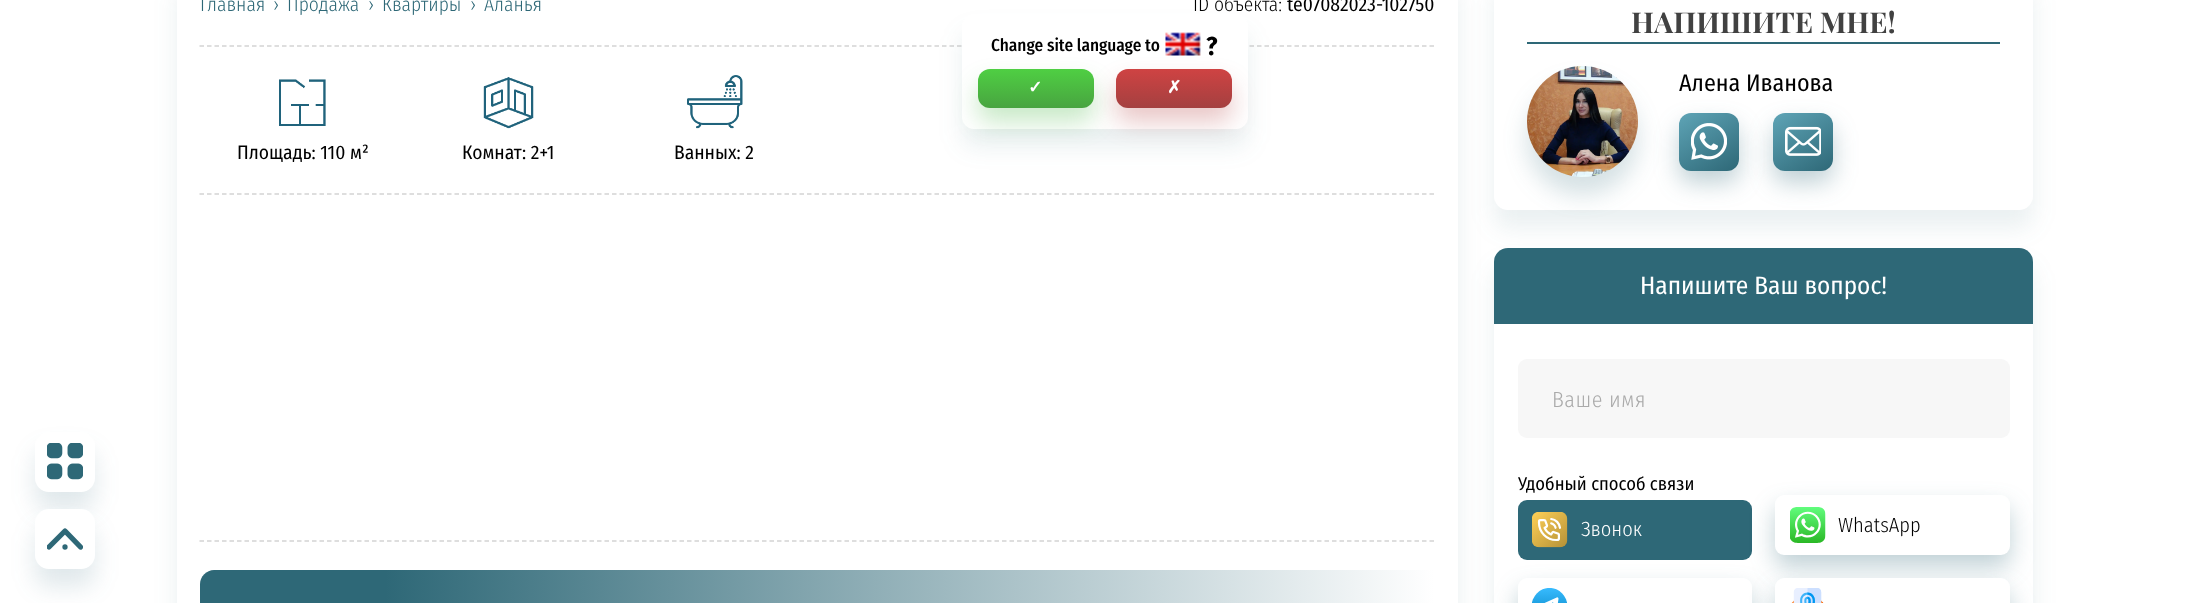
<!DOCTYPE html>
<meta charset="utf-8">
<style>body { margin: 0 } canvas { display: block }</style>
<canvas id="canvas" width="2209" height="603"></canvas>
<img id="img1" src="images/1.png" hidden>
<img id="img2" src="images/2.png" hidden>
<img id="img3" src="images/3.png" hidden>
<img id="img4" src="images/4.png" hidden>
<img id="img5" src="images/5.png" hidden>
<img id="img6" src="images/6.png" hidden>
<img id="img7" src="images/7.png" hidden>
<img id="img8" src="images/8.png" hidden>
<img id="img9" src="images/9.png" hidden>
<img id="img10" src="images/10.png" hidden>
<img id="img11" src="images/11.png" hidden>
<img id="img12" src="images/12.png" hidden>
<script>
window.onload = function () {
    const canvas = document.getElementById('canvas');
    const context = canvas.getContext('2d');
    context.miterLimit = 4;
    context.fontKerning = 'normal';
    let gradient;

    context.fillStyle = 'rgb(255, 255, 255)';
    context.fillRect(0, 0, 2209, 603);
    context.save();
    context.beginPath();
    context.moveTo(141, 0);
    context.lineTo(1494, 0);
    context.lineTo(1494, 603);
    context.lineTo(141, 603);
    context.closePath();
    context.moveTo(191, -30);
    context.lineTo(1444, -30);
    context.bezierCurveTo(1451.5, -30, 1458, -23.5, 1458, -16);
    context.lineTo(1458, 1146);
    context.bezierCurveTo(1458, 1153.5, 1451.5, 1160, 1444, 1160);
    context.lineTo(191, 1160);
    context.bezierCurveTo(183.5, 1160, 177, 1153.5, 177, 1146);
    context.lineTo(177, -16);
    context.bezierCurveTo(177, -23.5, 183.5, -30, 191, -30);
    context.closePath();
    context.clip('evenodd');
    context.fillStyle = 'rgba(46, 104, 119, 0.1)';
    context.filter = 'blur(11.5px)';
    context.beginPath();
    context.roundRect(177, -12, 1281, 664, 14);
    context.fill();
    context.filter = 'none';
    context.restore();
    context.beginPath();
    context.moveTo(199.5, 46);
    context.lineTo(1434, 46);
    context.strokeStyle = 'rgb(211, 211, 211)';
    context.lineWidth = 1.5;
    context.setLineDash([4.5, 3]);
    context.stroke();
    context.drawImage(document.getElementById('img1'), 279, 79, 47, 47);
    context.drawImage(document.getElementById('img2'), 483, 77, 51, 52);
    context.drawImage(document.getElementById('img3'), 687, 75, 56, 54);
    context.beginPath();
    context.moveTo(199.5, 194);
    context.lineTo(1434, 194);
    context.stroke();
    context.beginPath();
    context.moveTo(199.5, 541);
    context.lineTo(1434, 541);
    context.stroke();
    gradient = context.createLinearGradient(200, 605, 1434, 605);
    gradient.addColorStop(0.15, 'rgb(46, 104, 119)');
    gradient.addColorStop(1, 'rgb(255, 255, 255)');
    context.fillStyle = gradient;
    context.beginPath();
    context.moveTo(214, 570);
    context.lineTo(1434, 570);
    context.lineTo(1434, 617);
    context.lineTo(200, 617);
    context.lineTo(200, 584);
    context.bezierCurveTo(200, 576.5, 206.5, 570, 214, 570);
    context.closePath();
    context.fill();
    context.fillStyle = 'rgba(46, 104, 119, 0.1)';
    context.filter = 'blur(11.5px)';
    context.beginPath();
    context.roundRect(1494, -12, 539, 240, 14);
    context.fill();
    context.filter = 'none';
    context.fillStyle = 'rgb(255, 255, 255)';
    context.beginPath();
    context.roundRect(1494, -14, 539, 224, 14);
    context.fill();
    context.fillStyle = 'rgb(46, 104, 119)';
    context.fillRect(1527, 42, 473, 2);
    context.fillStyle = 'rgba(46, 104, 119, 0.2)';
    context.filter = 'blur(11.5px)';
    context.beginPath();
    context.roundRect(1527, 84, 111, 111, 55.5);
    context.fill();
    context.filter = 'none';
    context.drawImage(document.getElementById('img4'), 1527, 66, 111, 111);
    context.fillStyle = 'rgba(46, 104, 119, 0.3)';
    context.filter = 'blur(11.5px)';
    context.beginPath();
    context.roundRect(1679, 125, 60, 58, 12);
    context.fill();
    context.filter = 'none';
    gradient = context.createLinearGradient(1687, 107, 1730, 176);
    gradient.addColorStop(0, 'rgb(95, 165, 183)');
    gradient.addColorStop(1, 'rgb(46, 104, 119)');
    context.fillStyle = gradient;
    context.beginPath();
    context.roundRect(1679, 113, 60, 58, 12);
    context.fill();
    context.drawImage(document.getElementById('img5'), 1691, 123, 36, 37);
    context.fillStyle = 'rgba(46, 104, 119, 0.3)';
    context.filter = 'blur(11.5px)';
    context.beginPath();
    context.roundRect(1773, 125, 60, 58, 12);
    context.fill();
    context.filter = 'none';
    gradient = context.createLinearGradient(1781, 107, 1825, 176);
    gradient.addColorStop(0, 'rgb(95, 165, 183)');
    gradient.addColorStop(1, 'rgb(46, 104, 119)');
    context.fillStyle = gradient;
    context.beginPath();
    context.roundRect(1773, 113, 60, 58, 12);
    context.fill();
    context.drawImage(document.getElementById('img6'), 1785, 126, 36, 30);
    context.fillStyle = 'rgba(46, 104, 119, 0.1)';
    context.filter = 'blur(11.5px)';
    context.beginPath();
    context.roundRect(1494, 266, 539, 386, 14);
    context.fill();
    context.filter = 'none';
    context.fillStyle = 'rgb(255, 255, 255)';
    context.beginPath();
    context.roundRect(1494, 248, 539, 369, 14);
    context.fill();
    context.fillStyle = 'rgb(46, 104, 119)';
    context.beginPath();
    context.roundRect(1494, 248, 539, 76, [14, 14, 0, 0]);
    context.fill();
    context.fillStyle = 'rgb(247, 247, 247)';
    context.beginPath();
    context.roundRect(1518, 359, 492, 79, 9);
    context.fill();
    context.fillStyle = 'rgb(46, 104, 119)';
    context.beginPath();
    context.roundRect(1518, 500, 234, 60, 9);
    context.fill();
    context.drawImage(document.getElementById('img7'), 1532, 512, 36, 36);
    context.fillStyle = 'rgba(46, 104, 119, 0.3)';
    context.filter = 'blur(11.5px)';
    context.beginPath();
    context.roundRect(1775, 507, 235, 60, 9);
    context.fill();
    context.filter = 'none';
    context.fillStyle = 'rgb(255, 255, 255)';
    context.beginPath();
    context.roundRect(1775, 495, 235, 60, 9);
    context.fill();
    context.drawImage(document.getElementById('img8'), 1790, 507, 36, 36);
    context.fillStyle = 'rgba(46, 104, 119, 0.3)';
    context.filter = 'blur(11.5px)';
    context.beginPath();
    context.roundRect(1518, 590, 234, 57, 9);
    context.fill();
    context.filter = 'none';
    context.fillStyle = 'rgb(255, 255, 255)';
    context.beginPath();
    context.roundRect(1518, 578, 234, 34, 9);
    context.fill();
    context.drawImage(document.getElementById('img9'), 1532, 588, 35, 15);
    context.fillStyle = 'rgba(46, 104, 119, 0.3)';
    context.filter = 'blur(11.5px)';
    context.beginPath();
    context.roundRect(1775, 590, 235, 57, 9);
    context.fill();
    context.filter = 'none';
    context.fillStyle = 'rgb(255, 255, 255)';
    context.beginPath();
    context.roundRect(1775, 578, 235, 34, 9);
    context.fill();
    context.drawImage(document.getElementById('img10'), 1791, 588, 33, 15);
    context.fillStyle = 'rgba(46, 104, 119, 0.1)';
    context.filter = 'blur(11.5px)';
    context.beginPath();
    context.roundRect(962, 32, 286, 115, 12);
    context.fill();
    context.filter = 'none';
    context.fillStyle = 'rgb(255, 255, 255)';
    context.beginPath();
    context.roundRect(962, 14, 286, 115, 12);
    context.fill();
    context.drawImage(document.getElementById('img11'), 1165, 32, 36, 24);
    context.fillStyle = 'rgba(35, 168, 30, 0.25)';
    context.filter = 'blur(12.5px)';
    context.beginPath();
    context.roundRect(978, 83, 116, 39, 12);
    context.fill();
    context.filter = 'none';
    gradient = context.createLinearGradient(1036, 69, 1036, 108);
    gradient.addColorStop(0, 'rgb(79, 207, 67)');
    gradient.addColorStop(1, 'rgb(72, 164, 64)');
    context.fillStyle = gradient;
    context.beginPath();
    context.roundRect(978, 69, 116, 39, 12);
    context.fill();
    context.fillStyle = 'rgba(168, 30, 30, 0.25)';
    context.filter = 'blur(12.5px)';
    context.beginPath();
    context.roundRect(1116, 83, 116, 39, 12);
    context.fill();
    context.filter = 'none';
    gradient = context.createLinearGradient(1174, 69, 1174, 108);
    gradient.addColorStop(0, 'rgb(207, 67, 67)');
    gradient.addColorStop(1, 'rgb(164, 64, 64)');
    context.fillStyle = gradient;
    context.beginPath();
    context.roundRect(1116, 69, 116, 39, 12);
    context.fill();
    context.fillStyle = 'rgba(46, 104, 119, 0.15)';
    context.filter = 'blur(11.5px)';
    context.beginPath();
    context.roundRect(35, 450, 60, 60, 14);
    context.fill();
    context.filter = 'none';
    context.fillStyle = 'rgb(255, 255, 255)';
    context.beginPath();
    context.roundRect(35, 432, 60, 60, 14);
    context.fill();
    context.drawImage(document.getElementById('img12'), 47, 443, 36, 37);
    context.fillStyle = 'rgba(46, 104, 119, 0.15)';
    context.filter = 'blur(11.5px)';
    context.beginPath();
    context.roundRect(35, 527, 60, 60, 14);
    context.fill();
    context.filter = 'none';
    context.fillStyle = 'rgb(255, 255, 255)';
    context.beginPath();
    context.roundRect(35, 509, 60, 60, 14);
    context.fill();
    context.save();
    context.beginPath();
    context.rect(47, 521, 36, 36);
    context.clip();
    context.beginPath();
    context.moveTo(49, 547);
    context.lineTo(65, 531);
    context.lineTo(80.5, 547);
    context.moveTo(65, 547);
    context.lineTo(65, 547);
    context.strokeStyle = 'rgb(46, 104, 119)';
    context.lineWidth = 5.3;
    context.lineCap = 'round';
    context.lineJoin = 'round';
    context.setLineDash([]);
    context.stroke();
    context.restore();
    context.font = '300 19.5px Fira Sans Condensed';
    context.fillStyle = 'rgb(46, 104, 119)';
    context.fillText('Главная', 200, 11);
    context.fillText('›', 273, 11);
    context.fillText('Продажа', 287, 11);
    context.fillText('›', 368, 11);
    context.fillText('Квартиры', 382, 11);
    context.fillText('›', 470, 11);
    context.fillText('Аланья', 484, 11);
    context.fillStyle = 'rgb(0, 0, 0)';
    context.fillText('ID объекта:', 1193, 11);
    context.font = '19.5px Fira Sans Condensed';
    context.fillText('te07082023-102750', 1287, 11);
    context.fillText('Площадь: 110 м²', 237, 159);
    context.fillText('Комнат: 2+1', 462, 159);
    context.fillText('Ванных: 2', 674, 159);
    context.font = 'bold 28.75px Playfair Display';
    context.fillStyle = 'rgb(65, 65, 65)';
    context.fillText('НАПИШИТЕ МНЕ!', 1631, 33);
    context.font = '24px Fira Sans Condensed';
    context.fillStyle = 'rgb(0, 0, 0)';
    context.fillText('Алена Иванова', 1679, 91);
    context.font = '25.25px Fira Sans Condensed';
    context.fillStyle = 'rgb(255, 255, 255)';
    context.fillText('Напишите Ваш вопрос!', 1640, 294);
    context.letterSpacing = '0.5px';
    context.font = '300 22px Fira Sans Condensed';
    context.fillStyle = 'rgb(170, 170, 170)';
    context.fillText('Ваше имя', 1552, 407);
    context.letterSpacing = '0px';
    context.font = '18.5px Fira Sans Condensed';
    context.fillStyle = 'rgb(0, 0, 0)';
    context.fillText('Удобный способ связи', 1518, 490);
    context.font = '300 20.5px Fira Sans Condensed';
    context.fillStyle = 'rgb(255, 255, 255)';
    context.fillText('Звонок', 1581, 536);
    context.fillStyle = 'rgb(0, 0, 0)';
    context.fillText('WhatsApp', 1838, 532);
    context.font = '500 17.25px Fira Sans Condensed';
    context.fillText('Change site language to', 991, 51);
    context.font = 'bold 26px Fira Sans Condensed';
    context.fillText('?', 1206, 55);
    context.font = 'bold 17.25px DejaVu Sans';
    context.fillStyle = 'rgb(255, 255, 255)';
    context.fillText('✓', 1028, 93);
    context.fillText('✗', 1167, 93);
};
</script>
